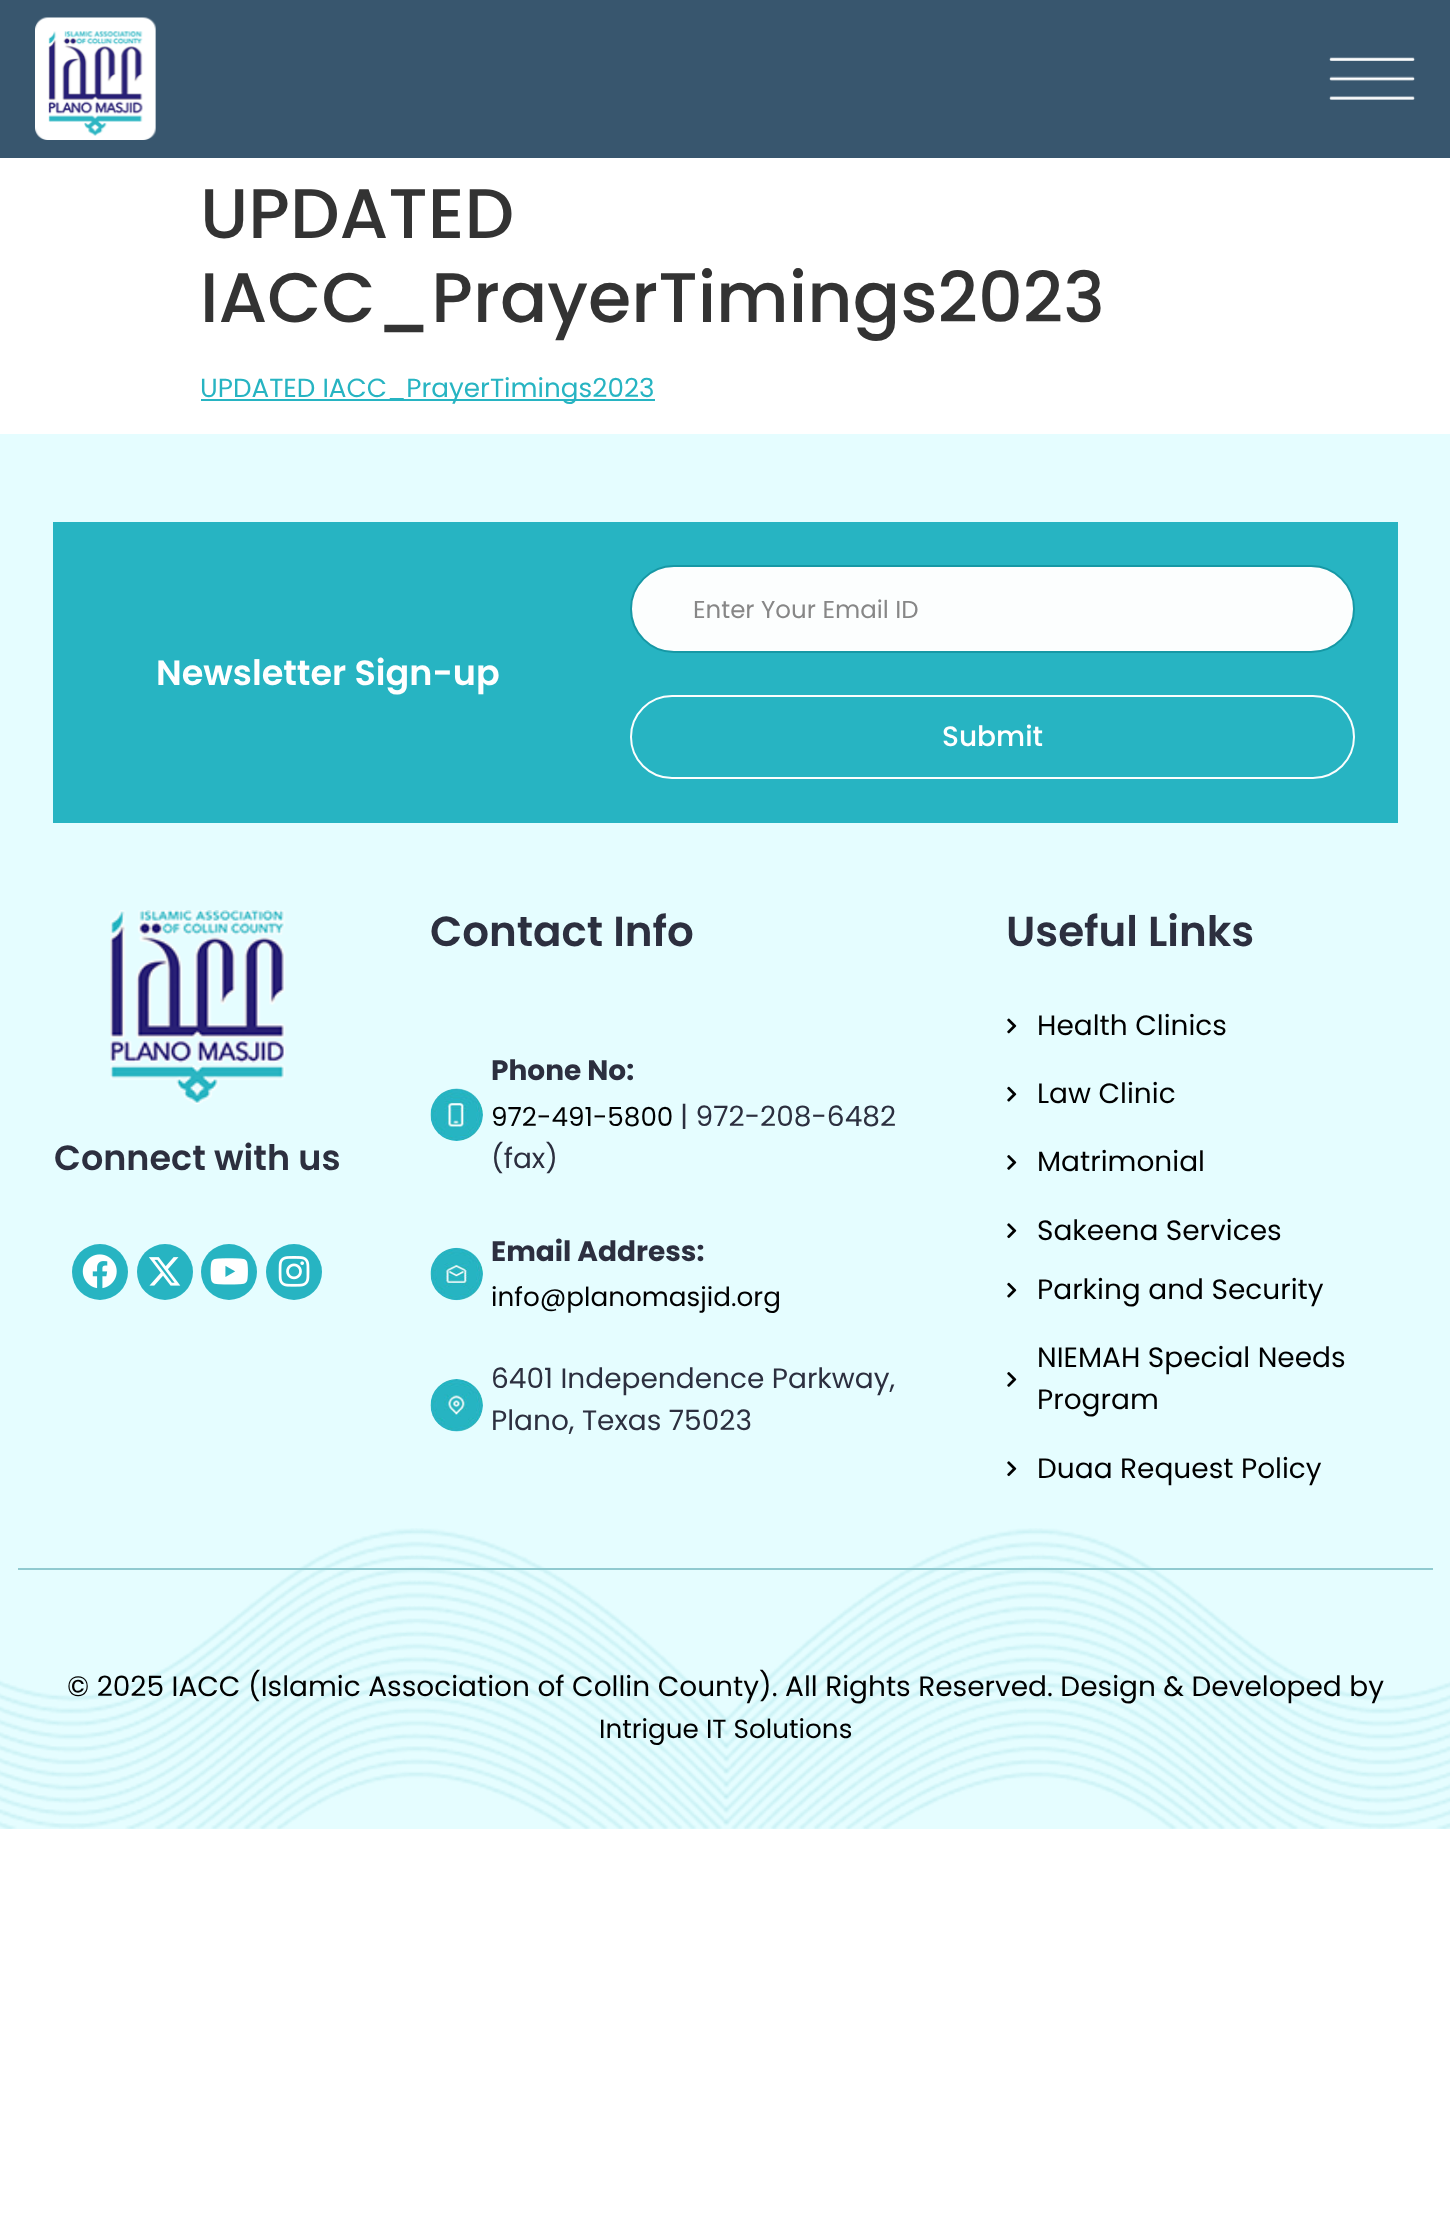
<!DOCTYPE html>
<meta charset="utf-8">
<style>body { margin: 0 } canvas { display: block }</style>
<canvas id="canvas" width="1450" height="2221"></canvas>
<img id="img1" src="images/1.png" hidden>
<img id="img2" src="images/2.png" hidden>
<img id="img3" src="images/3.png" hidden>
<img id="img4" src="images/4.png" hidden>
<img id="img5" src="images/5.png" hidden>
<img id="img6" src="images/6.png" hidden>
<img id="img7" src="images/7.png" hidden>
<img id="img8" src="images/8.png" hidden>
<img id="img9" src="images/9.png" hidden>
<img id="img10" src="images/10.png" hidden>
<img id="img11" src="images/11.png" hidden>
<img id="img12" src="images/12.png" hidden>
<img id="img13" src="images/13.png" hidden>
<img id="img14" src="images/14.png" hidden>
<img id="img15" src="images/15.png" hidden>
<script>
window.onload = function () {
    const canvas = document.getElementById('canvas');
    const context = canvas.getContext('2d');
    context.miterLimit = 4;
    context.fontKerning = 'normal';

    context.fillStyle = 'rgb(255, 255, 255)';
    context.fillRect(0, 0, 1450, 2221);
    context.fillStyle = 'rgb(56, 86, 110)';
    context.fillRect(0, 0, 1450, 158);
    context.drawImage(document.getElementById('img1'), 35, 17, 121, 123);
    context.drawImage(document.getElementById('img2'), 1329, 57, 87, 43);
    context.fillStyle = 'rgb(39, 180, 194)';
    context.fillRect(201, 399, 454, 2);
    context.fillStyle = 'rgb(229, 253, 255)';
    context.fillRect(0, 434, 1450, 1395);
    context.drawImage(document.getElementById('img3'), 0, 1528, 1450, 301);
    context.fillStyle = 'rgb(39, 180, 194)';
    context.fillRect(53, 522, 1345, 301);
    context.fillStyle = 'rgb(252, 254, 254)';
    context.beginPath();
    context.roundRect(631, 566, 723, 86, 43);
    context.fill();
    context.strokeStyle = 'rgb(22, 152, 165)';
    context.lineWidth = 2;
    context.stroke();
    context.beginPath();
    context.roundRect(631, 696, 723, 82, 41);
    context.strokeStyle = 'rgb(252, 254, 254)';
    context.stroke();
    context.drawImage(document.getElementById('img4'), 110, 910, 176, 195);
    context.fillStyle = 'rgb(39, 180, 194)';
    context.beginPath();
    context.arc(100, 1272, 28, 0, 2 * Math.PI);
    context.fill();
    context.drawImage(document.getElementById('img5'), 82, 1254, 35, 35);
    context.beginPath();
    context.arc(165, 1272, 28, 0, 2 * Math.PI);
    context.fill();
    context.drawImage(document.getElementById('img6'), 149, 1257, 32, 29);
    context.beginPath();
    context.arc(229, 1272, 28, 0, 2 * Math.PI);
    context.fill();
    context.drawImage(document.getElementById('img7'), 210, 1258, 38, 27);
    context.beginPath();
    context.arc(294, 1272, 28, 0, 2 * Math.PI);
    context.fill();
    context.drawImage(document.getElementById('img8'), 278, 1256, 32, 31);
    context.drawImage(document.getElementById('img9'), 430, 1088, 53, 53);
    context.drawImage(document.getElementById('img10'), 430, 1247, 53, 54);
    context.drawImage(document.getElementById('img11'), 430, 1379, 53, 53);
    context.drawImage(document.getElementById('img12'), 1007, 1018, 10, 16);
    context.drawImage(document.getElementById('img13'), 1007, 1086, 10, 16);
    context.drawImage(document.getElementById('img14'), 1007, 1155, 10, 15);
    context.drawImage(document.getElementById('img15'), 1007, 1223, 10, 16);
    context.drawImage(document.getElementById('img13'), 1007, 1282, 10, 16);
    context.drawImage(document.getElementById('img14'), 1007, 1372, 10, 15);
    context.drawImage(document.getElementById('img15'), 1007, 1461, 10, 16);
    context.fillStyle = 'rgb(144, 202, 208)';
    context.fillRect(18, 1568, 1415, 2);
    context.font = '500 70px Poppins';
    context.fillStyle = 'rgb(51, 51, 51)';
    context.fillText('UPDATED', 200, 238);
    context.fillText('IACC_PrayerTimings2023', 200, 322);
    context.font = '26.25px Poppins';
    context.fillStyle = 'rgb(39, 180, 194)';
    context.fillText('UPDATED IACC_PrayerTimings2023', 200, 397);
    context.font = '600 35px Poppins';
    context.fillStyle = 'rgb(255, 255, 255)';
    context.fillText('Newsletter Sign-up', 156, 685);
    context.font = '24.5px Poppins';
    context.fillStyle = 'rgb(135, 135, 135)';
    context.fillText('Enter Your Email ID', 693, 618);
    context.font = '500 28px Poppins';
    context.fillStyle = 'rgb(255, 255, 255)';
    context.fillText('Submit', 942, 746);
    context.font = '600 35px Poppins';
    context.fillStyle = 'rgb(44, 47, 63)';
    context.fillText('Connect with us', 54, 1170);
    context.font = '600 42px Poppins';
    context.fillText('Contact Info', 430, 946);
    context.font = 'bold 28px Poppins';
    context.fillText('Phone No:', 491, 1080);
    context.font = '26.25px Poppins';
    context.fillStyle = 'rgb(0, 0, 0)';
    context.fillText('972-491-5800', 491, 1126);
    context.font = '28px Poppins';
    context.fillStyle = 'rgb(44, 47, 63)';
    context.fillText('| 972-208-6482', 680, 1126);
    context.fillText('(fax)', 491, 1168);
    context.font = 'bold 28px Poppins';
    context.fillText('Email Address:', 491, 1261);
    context.font = '26.25px Poppins';
    context.fillStyle = 'rgb(0, 0, 0)';
    context.fillText('info@planomasjid.org', 491, 1306);
    context.font = '28px Poppins';
    context.fillStyle = 'rgb(44, 47, 63)';
    context.fillText('6401 Independence Parkway,', 491, 1388);
    context.fillText('Plano, Texas 75023', 491, 1430);
    context.font = '600 42px Poppins';
    context.fillText('Useful Links', 1006, 946);
    context.font = '28px Poppins';
    context.fillStyle = 'rgb(0, 0, 0)';
    context.fillText('Health Clinics', 1037, 1035);
    context.fillText('Law Clinic', 1037, 1103);
    context.fillText('Matrimonial', 1037, 1171);
    context.fillText('Sakeena Services', 1037, 1240);
    context.fillText('Parking and Security', 1037, 1299);
    context.fillText('NIEMAH Special Needs', 1037, 1367);
    context.fillText('Program', 1037, 1409);
    context.fillText('Duaa Request Policy', 1037, 1478);
    context.fillText('© 2025 IACC (Islamic Association of Collin County). All Rights Reserved. Design & Developed by', 67, 1696);
    context.font = '26.25px Poppins';
    context.fillText('Intrigue IT Solutions', 599, 1738);
};
</script>
